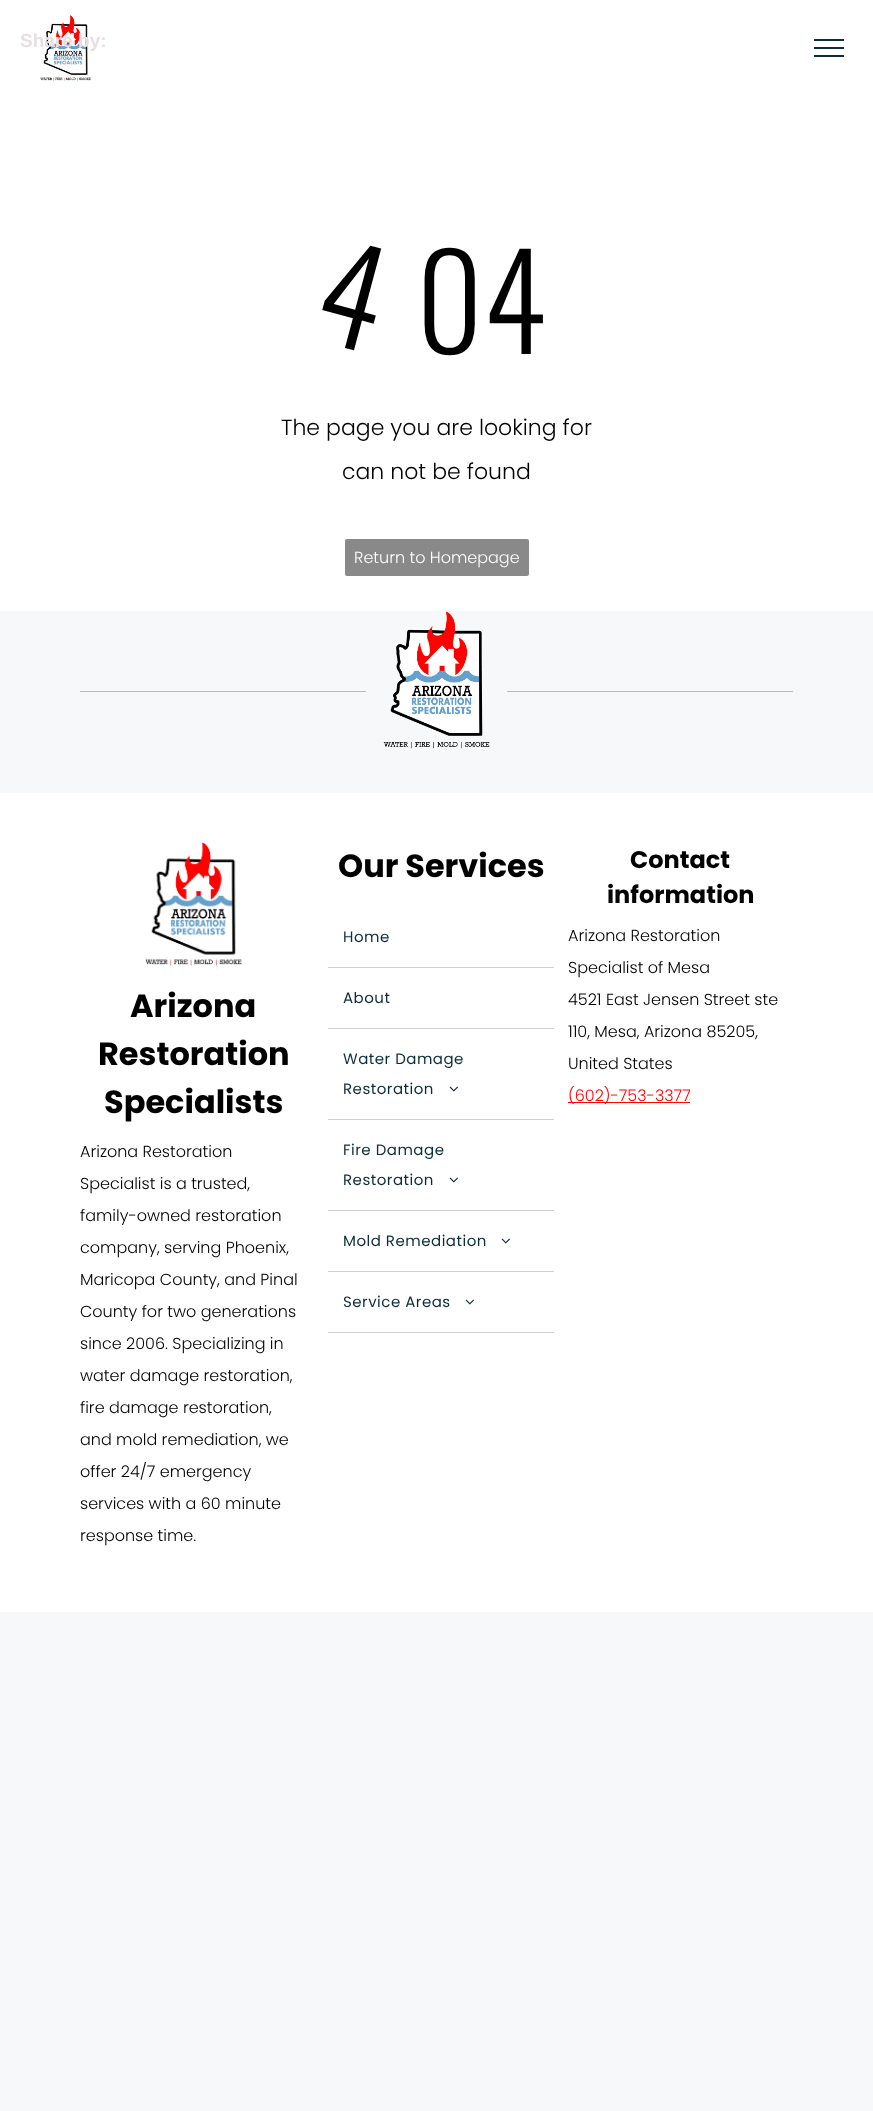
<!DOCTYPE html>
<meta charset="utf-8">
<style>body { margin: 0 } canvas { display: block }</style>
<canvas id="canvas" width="873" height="2111"></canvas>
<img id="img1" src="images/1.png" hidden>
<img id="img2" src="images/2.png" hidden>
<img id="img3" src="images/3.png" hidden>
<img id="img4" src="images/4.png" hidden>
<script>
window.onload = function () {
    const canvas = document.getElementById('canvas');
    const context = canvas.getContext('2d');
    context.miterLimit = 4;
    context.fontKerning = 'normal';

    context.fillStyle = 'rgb(246, 248, 250)';
    context.fillRect(0, 0, 873, 2111);
    context.fillStyle = 'rgb(255, 255, 255)';
    context.fillRect(0, 0, 873, 611);
    context.drawImage(document.getElementById('img1'), 40, 15, 51, 66);
    context.fillStyle = 'rgb(14, 45, 59)';
    context.fillRect(814, 39, 30, 2);
    context.fillRect(814, 47, 30, 2);
    context.fillRect(814, 55, 30, 2);
    context.fillStyle = 'rgb(137, 137, 137)';
    context.beginPath();
    context.roundRect(345, 539, 184, 37, 2);
    context.fill();
    context.fillStyle = 'rgb(178, 187, 191)';
    context.fillRect(80, 691, 286, 1);
    context.drawImage(document.getElementById('img2'), 383, 611, 107, 138);
    context.fillRect(507, 691, 286, 1);
    context.fillStyle = 'rgb(255, 255, 255)';
    context.fillRect(0, 793, 873, 819);
    context.drawImage(document.getElementById('img3'), 145, 842, 97, 124);
    context.fillStyle = 'rgb(209, 209, 209)';
    context.fillRect(328, 967, 226, 1);
    context.fillRect(328, 1028, 226, 1);
    context.drawImage(document.getElementById('img4'), 449, 1086, 9, 6);
    context.fillRect(328, 1119, 226, 1);
    context.drawImage(document.getElementById('img4'), 449, 1177, 9, 6);
    context.fillRect(328, 1210, 226, 1);
    context.drawImage(document.getElementById('img4'), 501, 1238, 9, 6);
    context.fillRect(328, 1271, 226, 1);
    context.drawImage(document.getElementById('img4'), 465, 1299, 9, 6);
    context.fillRect(328, 1332, 226, 1);
    context.fillStyle = 'rgb(251, 5, 5)';
    context.fillRect(568, 1102, 122, 1);
    context.font = 'bold 19px Liberation Sans';
    context.fillStyle = 'rgb(233, 223, 226)';
    context.fillText('Share by:', 20, 47);
    context.font = '300 130px Oswald';
    context.fillStyle = 'rgb(0, 0, 0)';
    context.save();
    context.translate(308, 338);
    context.rotate(15 * Math.PI / 180);
    context.fillText('4', 0, 0);
    context.restore();
    context.fillText('04', 416, 354);
    context.font = '300 22px Poppins';
    context.fillText('The page you are looking for', 281, 435);
    context.fillText('can not be found', 342, 479);
    context.font = '300 16px Poppins';
    context.fillStyle = 'rgb(255, 255, 255)';
    context.fillText('Return to Homepage', 354, 563);
    context.font = 'bold 32px Poppins';
    context.fillStyle = 'rgb(0, 0, 0)';
    context.fillText('Arizona', 130, 1017);
    context.fillText('Restoration', 98, 1065);
    context.fillText('Specialists', 104, 1113);
    context.font = '300 16px Poppins';
    context.fillText('Arizona Restoration', 80, 1157);
    context.fillText('Specialist is a trusted,', 80, 1189);
    context.fillText('family-owned restoration', 80, 1221);
    context.fillText('company, serving Phoenix,', 80, 1253);
    context.fillText('Maricopa County, and Pinal', 80, 1285);
    context.fillText('County for two generations', 80, 1317);
    context.fillText('since 2006. Specializing in', 80, 1349);
    context.fillText('water damage restoration,', 80, 1381);
    context.fillText('fire damage restoration,', 80, 1413);
    context.fillText('and mold remediation, we', 80, 1445);
    context.fillText('offer 24/7 emergency', 80, 1477);
    context.fillText('services with a 60 minute', 80, 1509);
    context.fillText('response time.', 80, 1541);
    context.font = 'bold 32px Poppins';
    context.fillText('Our Services', 338, 877);
    context.letterSpacing = '0.5px';
    context.font = '15px Poppins';
    context.fillStyle = 'rgb(14, 45, 59)';
    context.fillText('Home', 343, 942);
    context.fillText('About', 343, 1003);
    context.fillText('Water Damage', 343, 1064);
    context.fillText('Restoration', 343, 1094);
    context.fillText('Fire Damage', 343, 1155);
    context.fillText('Restoration', 343, 1185);
    context.fillText('Mold Remediation', 343, 1246);
    context.fillText('Service Areas', 343, 1307);
    context.letterSpacing = '0px';
    context.font = 'bold 24px Poppins';
    context.fillStyle = 'rgb(0, 0, 0)';
    context.fillText('Contact', 630, 868);
    context.fillText('information', 607, 903);
    context.font = '300 16px Poppins';
    context.fillText('Arizona Restoration', 568, 941);
    context.fillText('Specialist of Mesa', 568, 973);
    context.fillText('4521 East Jensen Street ste', 568, 1005);
    context.fillText('110, Mesa, Arizona 85205,', 568, 1037);
    context.fillText('United States', 568, 1069);
    context.fillStyle = 'rgb(251, 5, 5)';
    context.fillText('(602)-753-3377', 568, 1101);
};
</script>
